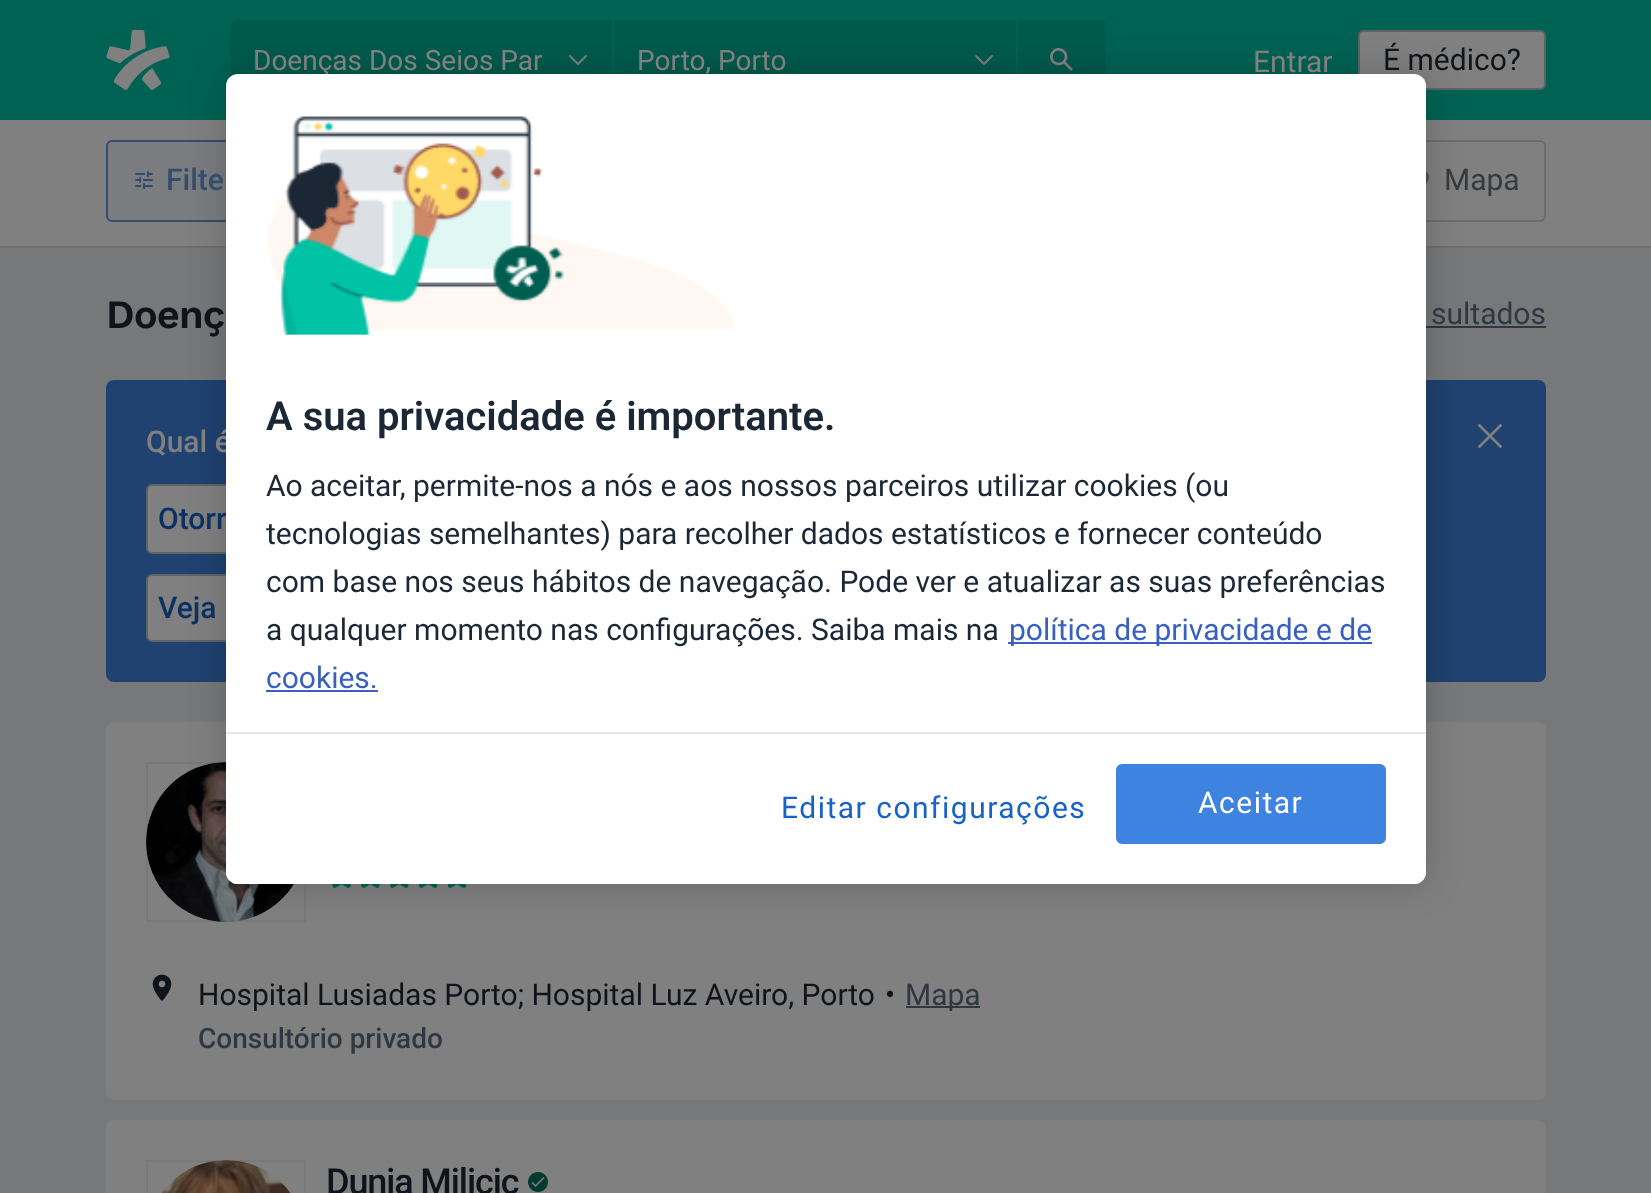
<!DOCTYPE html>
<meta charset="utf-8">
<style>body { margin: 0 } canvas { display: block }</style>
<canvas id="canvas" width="1651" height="1193"></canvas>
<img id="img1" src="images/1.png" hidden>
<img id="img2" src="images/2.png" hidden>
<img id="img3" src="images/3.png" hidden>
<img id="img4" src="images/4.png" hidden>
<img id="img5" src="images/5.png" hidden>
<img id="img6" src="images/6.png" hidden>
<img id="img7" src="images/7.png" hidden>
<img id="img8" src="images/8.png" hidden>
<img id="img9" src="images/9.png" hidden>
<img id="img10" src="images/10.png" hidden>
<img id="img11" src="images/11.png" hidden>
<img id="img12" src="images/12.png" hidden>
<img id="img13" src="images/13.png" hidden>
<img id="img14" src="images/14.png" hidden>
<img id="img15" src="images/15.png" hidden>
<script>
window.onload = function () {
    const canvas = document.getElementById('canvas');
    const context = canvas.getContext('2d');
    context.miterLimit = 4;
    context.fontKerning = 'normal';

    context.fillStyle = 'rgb(119, 120, 121)';
    context.fillRect(0, 0, 1651, 1193);
    context.fillStyle = 'rgb(0, 98, 83)';
    context.fillRect(0, 0, 1651, 120);
    context.drawImage(document.getElementById('img1'), 106, 30, 64, 60);
    context.fillStyle = 'rgb(0, 90, 76)';
    context.beginPath();
    context.roundRect(230, 20, 382, 80, [8, 0, 0, 8]);
    context.fill();
    context.drawImage(document.getElementById('img2'), 569, 55, 18, 10);
    context.fillRect(614, 20, 402, 54);
    context.drawImage(document.getElementById('img2'), 975, 55, 18, 10);
    context.beginPath();
    context.roundRect(1018, 20, 88, 80, [0, 6, 6, 0]);
    context.fill();
    context.drawImage(document.getElementById('img3'), 1050, 48, 23, 23);
    context.fillStyle = 'rgb(128, 128, 128)';
    context.beginPath();
    context.roundRect(1359, 31, 186, 58, 5);
    context.fill();
    context.strokeStyle = 'rgb(95, 98, 102)';
    context.lineWidth = 2;
    context.stroke();
    context.fillRect(0, 120, 1651, 126);
    context.fillStyle = 'rgb(110, 112, 114)';
    context.fillRect(0, 246, 1651, 2);
    context.fillStyle = 'rgb(122, 124, 127)';
    context.beginPath();
    context.roundRect(107, 141, 246, 80, 5);
    context.fill();
    context.strokeStyle = 'rgb(52, 77, 109)';
    context.stroke();
    context.drawImage(document.getElementById('img4'), 135, 171, 18, 18);
    context.beginPath();
    context.roundRect(1385, 141, 160, 80, 5);
    context.strokeStyle = 'rgb(107, 108, 111)';
    context.stroke();
    context.drawImage(document.getElementById('img5'), 1426, 171, 3, 14);
    context.fillStyle = 'rgb(48, 55, 64)';
    context.fillRect(1426, 326, 120, 2);
    context.fillStyle = 'rgb(31, 66, 112)';
    context.beginPath();
    context.roundRect(106, 380, 1440, 302, 8);
    context.fill();
    context.drawImage(document.getElementById('img6'), 1478, 424, 24, 24);
    context.fillStyle = 'rgb(128, 128, 128)';
    context.beginPath();
    context.roundRect(147, 485, 316, 68, 5);
    context.fill();
    context.strokeStyle = 'rgb(95, 98, 102)';
    context.stroke();
    context.beginPath();
    context.roundRect(147, 575, 196, 66, 5);
    context.fill();
    context.stroke();
    context.beginPath();
    context.roundRect(106, 722, 1440, 378, 8);
    context.fill();
    context.drawImage(document.getElementById('img7'), 146, 762, 148, 160);
    context.drawImage(document.getElementById('img8'), 146, 762, 148, 160);
    context.strokeStyle = 'rgba(0, 0, 0, 0.05)';
    context.strokeRect(147, 763, 158, 158);
    context.drawImage(document.getElementById('img9'), 332, 884, 134, 4);
    context.drawImage(document.getElementById('img10'), 332, 884, 134, 4);
    context.drawImage(document.getElementById('img11'), 152, 974, 20, 27);
    context.fillStyle = 'rgb(48, 55, 64)';
    context.fillRect(906, 1006, 74, 2);
    context.fillStyle = 'rgb(128, 128, 128)';
    context.beginPath();
    context.roundRect(106, 1120, 1440, 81, 8);
    context.fill();
    context.drawImage(document.getElementById('img12'), 162, 1160, 128, 33);
    context.drawImage(document.getElementById('img13'), 161, 1160, 130, 33);
    context.strokeRect(147, 1161, 158, 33);
    context.drawImage(document.getElementById('img14'), 528, 1172, 20, 20);
    context.fillStyle = 'rgba(0, 0, 0, 0.2)';
    context.filter = 'blur(18px)';
    context.beginPath();
    context.roundRect(226, 74, 1200, 810, 12);
    context.fill();
    context.filter = 'none';
    context.font = '28px Roboto';
    context.fillStyle = 'rgb(128, 128, 128)';
    context.fillText('Doenças Dos Seios Par', 253, 70);
    context.fillText('Porto, Porto', 637, 70);
    context.font = '30px Roboto';
    context.fillText('Entrar', 1253, 72);
    context.fillStyle = 'rgb(14, 20, 26)';
    context.fillText('É médico?', 1383, 70);
    context.font = '500 30px Roboto';
    context.fillStyle = 'rgb(52, 77, 109)';
    context.fillText('Filte', 166, 190);
    context.font = '30px Roboto';
    context.fillStyle = 'rgb(54, 58, 62)';
    context.fillText('Mapa', 1444, 190);
    context.letterSpacing = '-1px';
    context.font = '600 40px Work Sans';
    context.fillStyle = 'rgb(14, 20, 26)';
    context.fillText('Doenç', 106, 328);
    context.letterSpacing = '0px';
    context.font = '30px Roboto';
    context.fillStyle = 'rgb(48, 55, 64)';
    context.fillText('sultados', 1431, 324);
    context.font = '500 30px Roboto';
    context.fillStyle = 'rgb(128, 128, 128)';
    context.fillText('Qual é', 146, 452);
    context.fillStyle = 'rgb(11, 49, 99)';
    context.fillText('Otorr', 158, 529);
    context.fillText('Veja', 158, 618);
    context.font = '30px Roboto';
    context.fillStyle = 'rgb(14, 20, 26)';
    context.fillText('Hospital Lusiadas Porto; Hospital Luz Aveiro, Porto', 198, 1005);
    context.fillText('•', 885, 1005);
    context.fillStyle = 'rgb(48, 55, 64)';
    context.fillText('Mapa', 905, 1005);
    context.font = '500 28px Roboto';
    context.fillText('Consultório privado', 198, 1048);
    context.letterSpacing = '-1.1px';
    context.font = '500 36px Roboto';
    context.fillStyle = 'rgb(14, 20, 26)';
    context.fillText('Dunja Milicic', 326, 1194);
    context.fillStyle = 'rgb(255, 255, 255)';
    context.beginPath();
    context.roundRect(226, 74, 1200, 810, 12);
    context.fill();
    context.drawImage(document.getElementById('img15'), 268, 116, 466, 219);
    context.letterSpacing = '0px';
    context.font = '600 40px Roboto';
    context.fillStyle = 'rgb(27, 39, 52)';
    context.fillText('A sua privacidade é importante.', 266, 430);
    context.font = '30px Roboto';
    context.fillText('Ao aceitar, permite-nos a nós e aos nossos parceiros utilizar cookies (ou', 266, 496);
    context.fillText('tecnologias semelhantes) para recolher dados estatísticos e fornecer conteúdo', 266, 544);
    context.fillText('com base nos seus hábitos de navegação. Pode ver e atualizar as suas preferências', 266, 592);
    context.fillText('a qualquer momento nas configurações. Saiba mais na', 266, 640);
    context.fillStyle = 'rgb(56, 96, 190)';
    context.fillRect(1008, 642, 364, 2);
    context.fillText('política de privacidade e de', 1009, 640);
    context.fillText('cookies.', 266, 688);
    context.fillRect(266, 690, 112, 2);
    context.fillStyle = 'rgb(255, 255, 255)';
    context.beginPath();
    context.roundRect(226, 732, 1200, 152, [0, 0, 12, 12]);
    context.fill();
    context.fillStyle = 'rgb(233, 233, 233)';
    context.fillRect(226, 732, 1200, 2);
    context.letterSpacing = '1.5px';
    context.fillStyle = 'rgb(22, 98, 198)';
    context.fillText('Editar configurações', 781, 818);
    context.fillStyle = 'rgb(61, 131, 223)';
    context.beginPath();
    context.roundRect(1117, 765, 268, 78, 5);
    context.fill();
    context.strokeStyle = 'rgb(61, 131, 223)';
    context.stroke();
    context.fillStyle = 'rgb(255, 255, 255)';
    context.fillText('Aceitar', 1198, 813);
};
</script>
